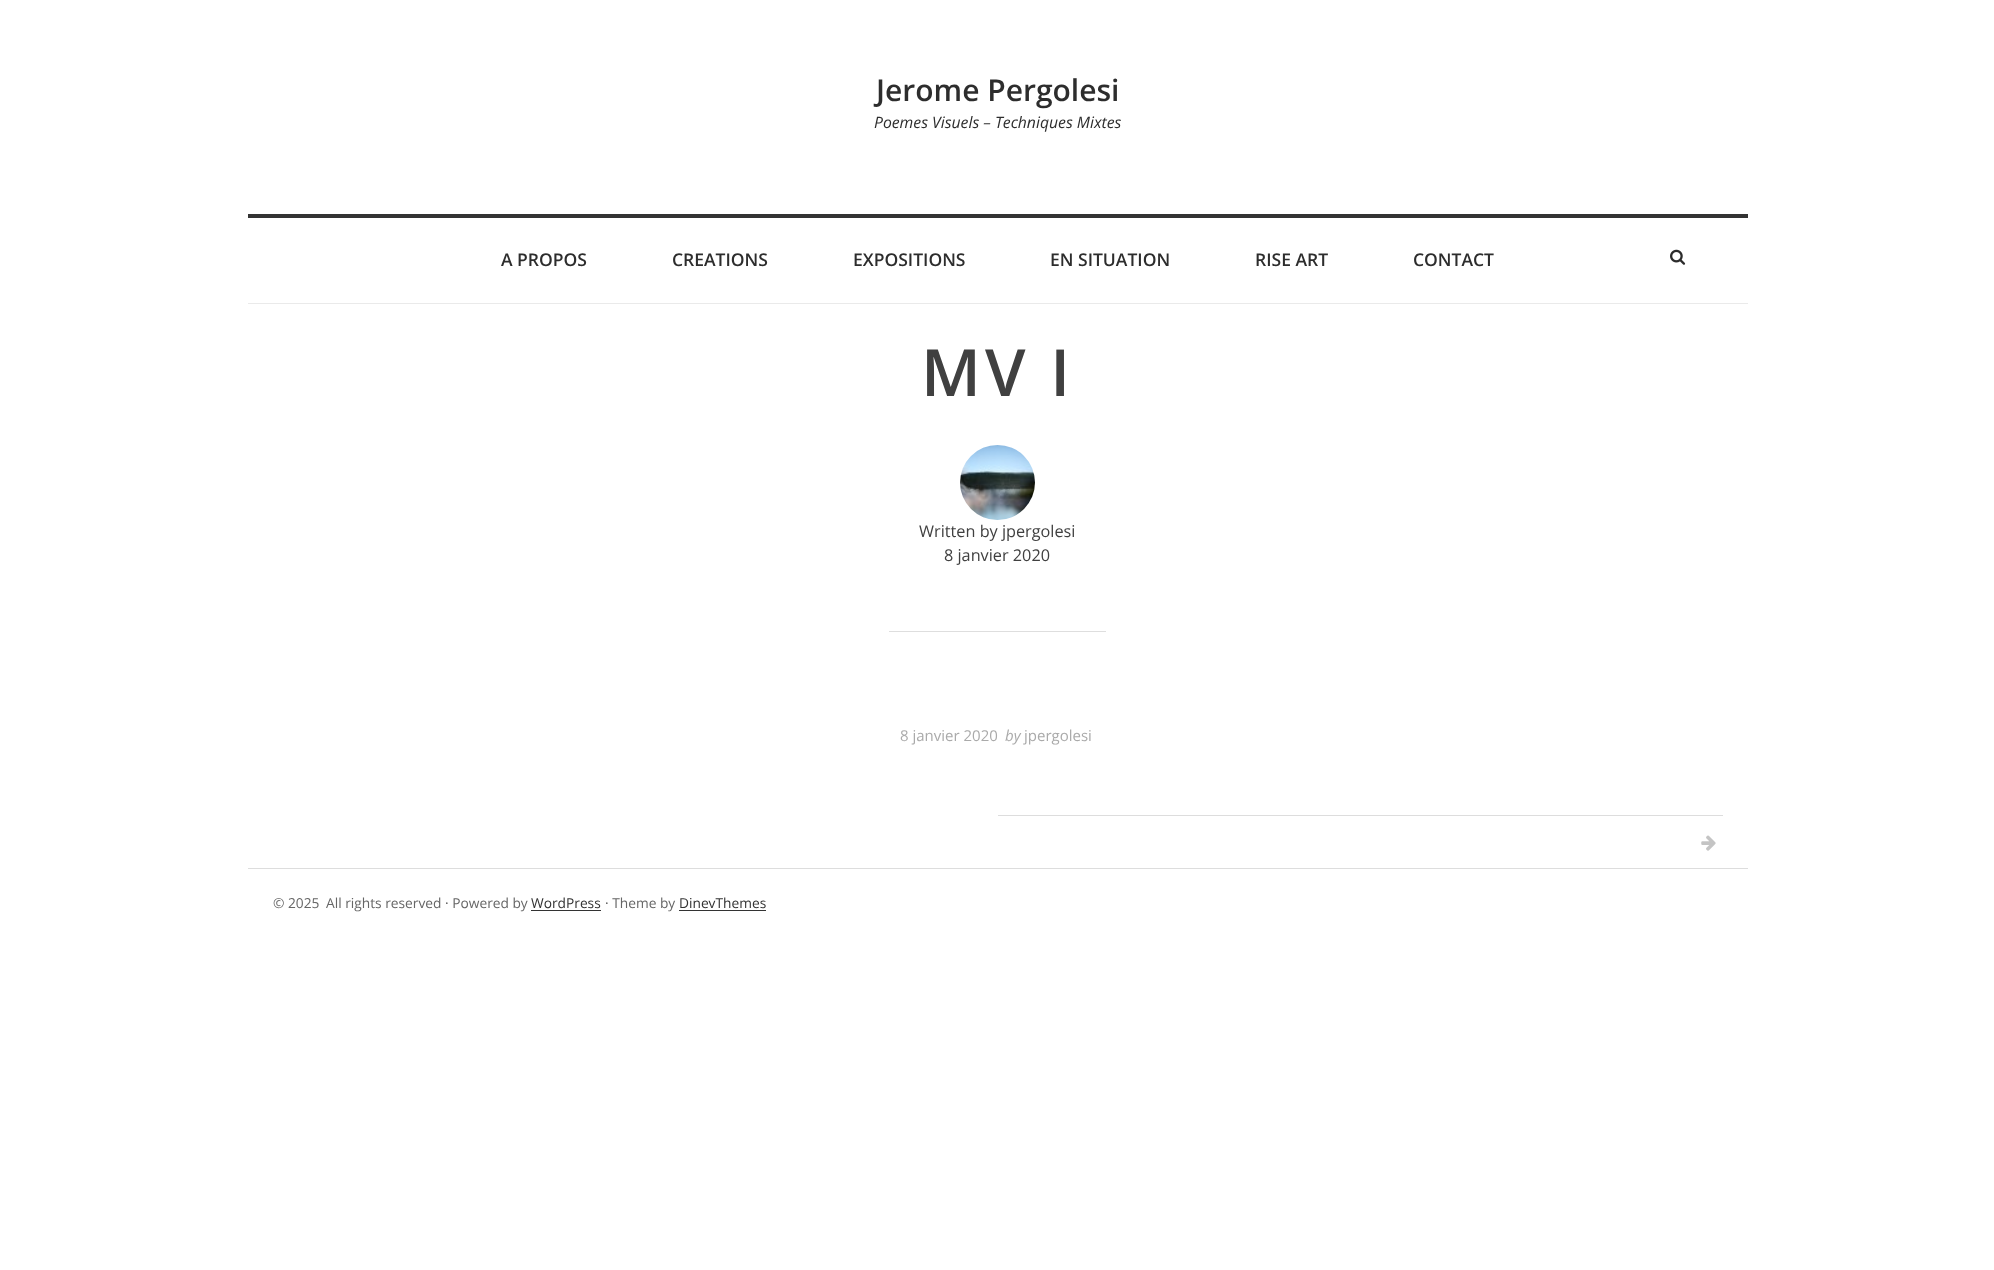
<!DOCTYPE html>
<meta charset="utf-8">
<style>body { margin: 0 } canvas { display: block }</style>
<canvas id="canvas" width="1994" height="1270"></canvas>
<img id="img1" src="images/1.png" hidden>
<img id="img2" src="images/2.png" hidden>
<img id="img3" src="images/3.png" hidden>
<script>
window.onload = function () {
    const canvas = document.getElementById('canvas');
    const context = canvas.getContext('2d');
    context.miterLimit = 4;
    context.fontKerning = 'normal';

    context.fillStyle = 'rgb(255, 255, 255)';
    context.fillRect(0, 0, 1994, 1270);
    context.fillStyle = 'rgb(51, 51, 51)';
    context.fillRect(248, 214, 1500, 4);
    context.fillStyle = 'rgb(234, 234, 234)';
    context.fillRect(248, 303, 1500, 1);
    context.drawImage(document.getElementById('img1'), 1670, 249, 16, 16);
    context.drawImage(document.getElementById('img2'), 960, 445, 75, 75);
    context.fillStyle = 'rgb(222, 222, 222)';
    context.fillRect(889, 631, 217, 1);
    context.fillStyle = 'rgb(221, 221, 221)';
    context.fillRect(998, 815, 725, 1);
    context.drawImage(document.getElementById('img3'), 1701, 835, 15, 16);
    context.fillRect(248, 868, 1500, 1);
    context.fillStyle = 'rgb(51, 51, 51)';
    context.fillRect(531, 910, 70, 1);
    context.fillRect(679, 910, 87, 1);
    context.font = '600 30px Open Sans';
    context.fillStyle = 'rgb(45, 45, 45)';
    context.fillText('Jerome Pergolesi', 876, 101);
    context.font = 'italic 15.75px Open Sans';
    context.fillText('Poemes Visuels – Techniques Mixtes', 874, 128);
    context.font = '600 17.5px Open Sans';
    context.fillText('A PROPOS', 501, 266);
    context.fillText('CREATIONS', 672, 266);
    context.fillText('EXPOSITIONS', 853, 266);
    context.fillText('EN SITUATION', 1050, 266);
    context.fillText('RISE ART', 1255, 266);
    context.fillText('CONTACT', 1413, 266);
    context.letterSpacing = '4px';
    context.font = '600 65px Open Sans';
    context.fillStyle = 'rgb(64, 64, 64)';
    context.fillText('MV I', 921, 396);
    context.letterSpacing = '0px';
    context.font = '16.25px Open Sans';
    context.fillText('Written by jpergolesi', 919, 537);
    context.fillText('8 janvier 2020', 944, 561);
    context.font = '15px Open Sans';
    context.fillStyle = 'rgb(170, 170, 170)';
    context.fillText('8 janvier 2020', 900, 741);
    context.font = 'italic 15px Open Sans';
    context.fillText('by', 1005, 741);
    context.font = '15px Open Sans';
    context.fillText('jpergolesi', 1024, 741);
    context.font = '13.75px Open Sans';
    context.fillStyle = 'rgb(102, 102, 102)';
    context.fillText('© 2025', 273, 908);
    context.fillText('All rights reserved · Powered by', 326, 908);
    context.fillStyle = 'rgb(51, 51, 51)';
    context.fillText('WordPress', 531, 908);
    context.fillStyle = 'rgb(102, 102, 102)';
    context.fillText('· Theme by', 605, 908);
    context.fillStyle = 'rgb(51, 51, 51)';
    context.fillText('DinevThemes', 679, 908);
};
</script>
